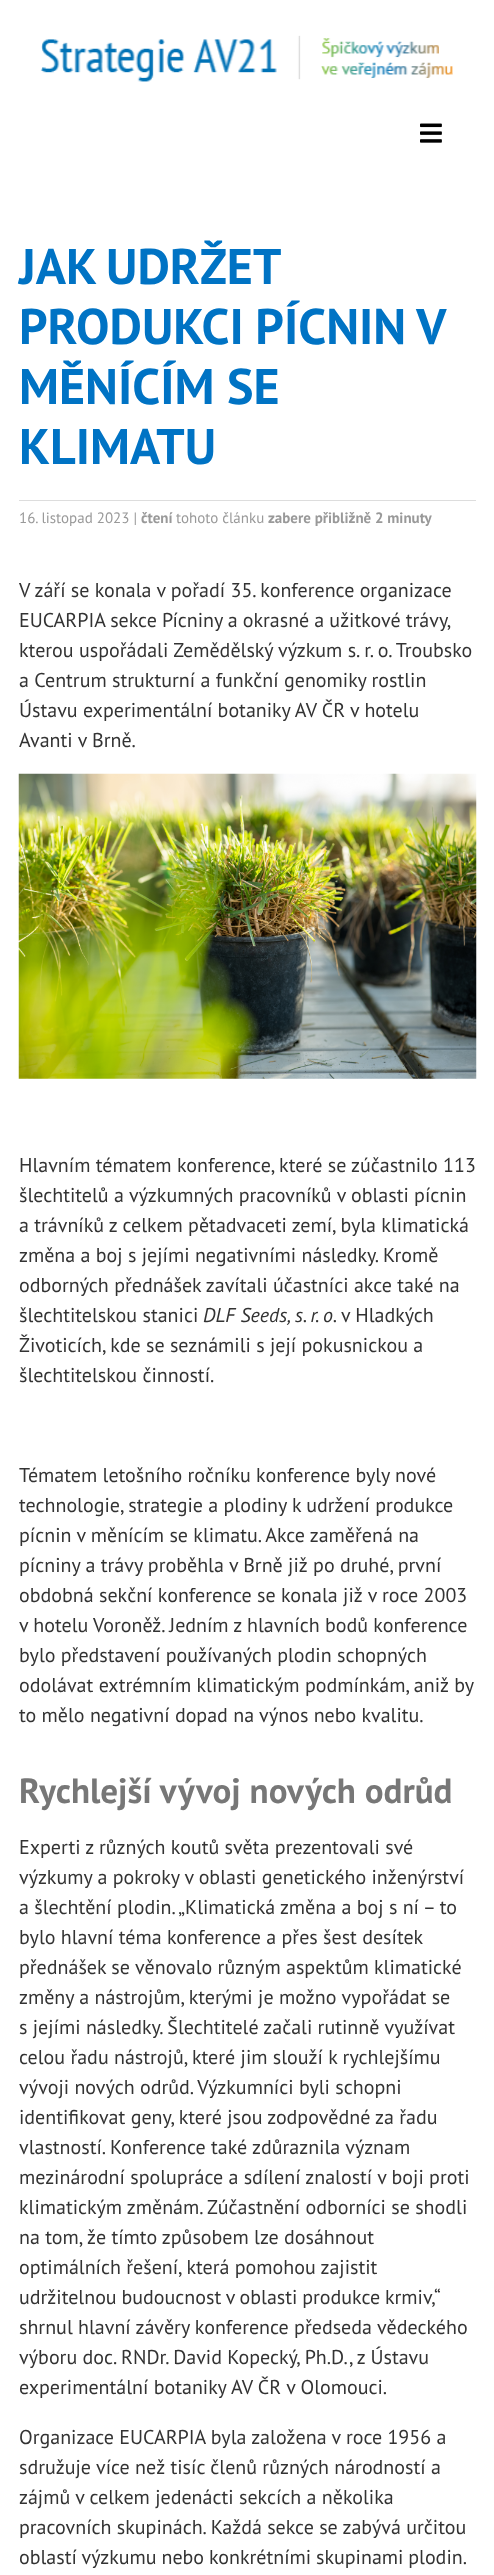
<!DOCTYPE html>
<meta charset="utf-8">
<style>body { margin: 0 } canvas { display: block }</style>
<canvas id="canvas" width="494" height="2575"></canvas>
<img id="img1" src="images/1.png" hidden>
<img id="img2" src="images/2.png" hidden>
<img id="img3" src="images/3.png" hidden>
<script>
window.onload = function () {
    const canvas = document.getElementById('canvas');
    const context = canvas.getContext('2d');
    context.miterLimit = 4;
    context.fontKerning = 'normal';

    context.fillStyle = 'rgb(255, 255, 255)';
    context.fillRect(0, 0, 494, 2575);
    context.drawImage(document.getElementById('img1'), 40, 35, 413, 47);
    context.drawImage(document.getElementById('img2'), 420, 123, 22, 20);
    context.fillStyle = 'rgb(221, 221, 221)';
    context.fillRect(19, 500, 457, 1);
    context.drawImage(document.getElementById('img3'), 18, 773, 459, 306);
    context.wordSpacing = '-2px';
    context.font = 'bold 50px PT Sans';
    context.fillStyle = 'rgb(0, 115, 196)';
    context.fillText('JAK UDRŽET', 19, 284);
    context.wordSpacing = '-1px';
    context.fillText('PRODUKCI PÍCNIN V', 19, 344);
    context.wordSpacing = '0px';
    context.fillText('MĚNÍCÍM SE', 19, 404);
    context.fillText('KLIMATU', 19, 464);
    context.font = '15px PT Sans';
    context.fillStyle = 'rgb(153, 153, 153)';
    context.fillText('16. listopad 2023 |', 19, 523);
    context.font = 'bold 15px PT Sans';
    context.fillText('čtení', 141, 523);
    context.font = '15px PT Sans';
    context.fillText('tohoto článku', 176, 523);
    context.font = 'bold 15px PT Sans';
    context.fillText('zabere přibližně 2 minuty', 268, 523);
    context.font = '20px PT Sans';
    context.fillStyle = 'rgb(51, 51, 51)';
    context.fillText('V září se konala v pořadí 35. konference organizace', 19, 597);
    context.wordSpacing = '-0.25px';
    context.fillText('EUCARPIA sekce Pícniny a okrasné a užitkové trávy,', 19, 627);
    context.wordSpacing = '0px';
    context.fillText('kterou uspořádali Zemědělský výzkum s. r. o. Troubsko', 19, 657);
    context.fillText('a Centrum strukturní a funkční genomiky rostlin', 19, 687);
    context.fillText('Ústavu experimentální botaniky AV ČR v hotelu', 19, 717);
    context.fillText('Avanti v Brně.', 19, 747);
    context.fillText('Hlavním tématem konference, které se zúčastnilo 113', 19, 1172);
    context.fillText('šlechtitelů a výzkumných pracovníků v oblasti pícnin', 19, 1202);
    context.fillText('a trávníků z celkem pětadvaceti zemí, byla klimatická', 19, 1232);
    context.fillText('změna a boj s jejími negativními následky. Kromě', 19, 1262);
    context.fillText('odborných přednášek zavítali účastníci akce také na', 19, 1292);
    context.fillText('šlechtitelskou stanici', 19, 1322);
    context.font = 'italic 20px PT Sans';
    context.fillText('DLF Seeds,', 203, 1322);
    context.wordSpacing = '-0.25px';
    context.fillText('s. r. o', 295, 1322);
    context.wordSpacing = '0px';
    context.fillText('.', 333, 1322);
    context.font = '20px PT Sans';
    context.fillText('v Hladkých', 341, 1322);
    context.fillText('Životicích, kde se seznámili s její pokusnickou a', 19, 1352);
    context.fillText('šlechtitelskou činností.', 19, 1382);
    context.fillText('Tématem letošního ročníku konference byly nové', 19, 1482);
    context.fillText('technologie, strategie a plodiny k udržení produkce', 19, 1512);
    context.fillText('pícnin v měnícím se klimatu. Akce zaměřená na', 19, 1542);
    context.fillText('pícniny a trávy proběhla v Brně již po druhé, první', 19, 1572);
    context.fillText('obdobná sekční konference se konala již v roce 2003', 19, 1602);
    context.fillText('v hotelu Voroněž. Jedním z hlavních bodů konference', 19, 1632);
    context.fillText('bylo představení používaných plodin schopných', 19, 1662);
    context.fillText('odolávat extrémním klimatickým podmínkám, aniž by', 19, 1692);
    context.fillText('to mělo negativní dopad na výnos nebo kvalitu.', 19, 1722);
    context.font = 'bold 35px PT Sans';
    context.fillStyle = 'rgb(119, 119, 119)';
    context.fillText('Rychlejší vývoj nových odrůd', 19, 1803);
    context.font = '20px PT Sans';
    context.fillStyle = 'rgb(51, 51, 51)';
    context.fillText('Experti z různých koutů světa prezentovali své', 19, 1854);
    context.fillText('výzkumy a pokroky v oblasti genetického inženýrství', 19, 1884);
    context.fillText('a šlechtění plodin. „Klimatická změna a boj s ní – to', 19, 1914);
    context.fillText('bylo hlavní téma konference a přes šest desítek', 19, 1944);
    context.fillText('přednášek se věnovalo různým aspektům klimatické', 19, 1974);
    context.fillText('změny a nástrojům, kterými je možno vypořádat se', 19, 2004);
    context.fillText('s jejími následky. Šlechtitelé začali rutinně využívat', 19, 2034);
    context.fillText('celou řadu nástrojů, které jim slouží k rychlejšímu', 19, 2064);
    context.fillText('vývoji nových odrůd. Výzkumníci byli schopni', 19, 2094);
    context.fillText('identifikovat geny, které jsou zodpovědné za řadu', 19, 2124);
    context.fillText('vlastností. Konference také zdůraznila význam', 19, 2154);
    context.fillText('mezinárodní spolupráce a sdílení znalostí v boji proti', 19, 2184);
    context.fillText('klimatickým změnám. Zúčastnění odborníci se shodli', 19, 2214);
    context.fillText('na tom, že tímto způsobem lze dosáhnout', 19, 2244);
    context.fillText('optimálních řešení, která pomohou zajistit', 19, 2274);
    context.wordSpacing = '-0.5px';
    context.fillText('udržitelnou budoucnost v oblasti produkce krmiv,“', 19, 2304);
    context.wordSpacing = '0px';
    context.fillText('shrnul hlavní závěry konference předseda vědeckého', 19, 2334);
    context.fillText('výboru doc. RNDr. David Kopecký, Ph.D., z Ústavu', 19, 2364);
    context.fillText('experimentální botaniky AV ČR v Olomouci.', 19, 2394);
    context.fillText('Organizace EUCARPIA byla založena v roce 1956 a', 19, 2444);
    context.fillText('sdružuje více než tisíc členů různých národností a', 19, 2474);
    context.fillText('zájmů v celkem jedenácti sekcích a několika', 19, 2504);
    context.fillText('pracovních skupinách. Každá sekce se zabývá určitou', 19, 2534);
    context.wordSpacing = '-0.5px';
    context.fillText('oblastí výzkumu nebo konkrétními skupinami plodin.', 19, 2564);
};
</script>
